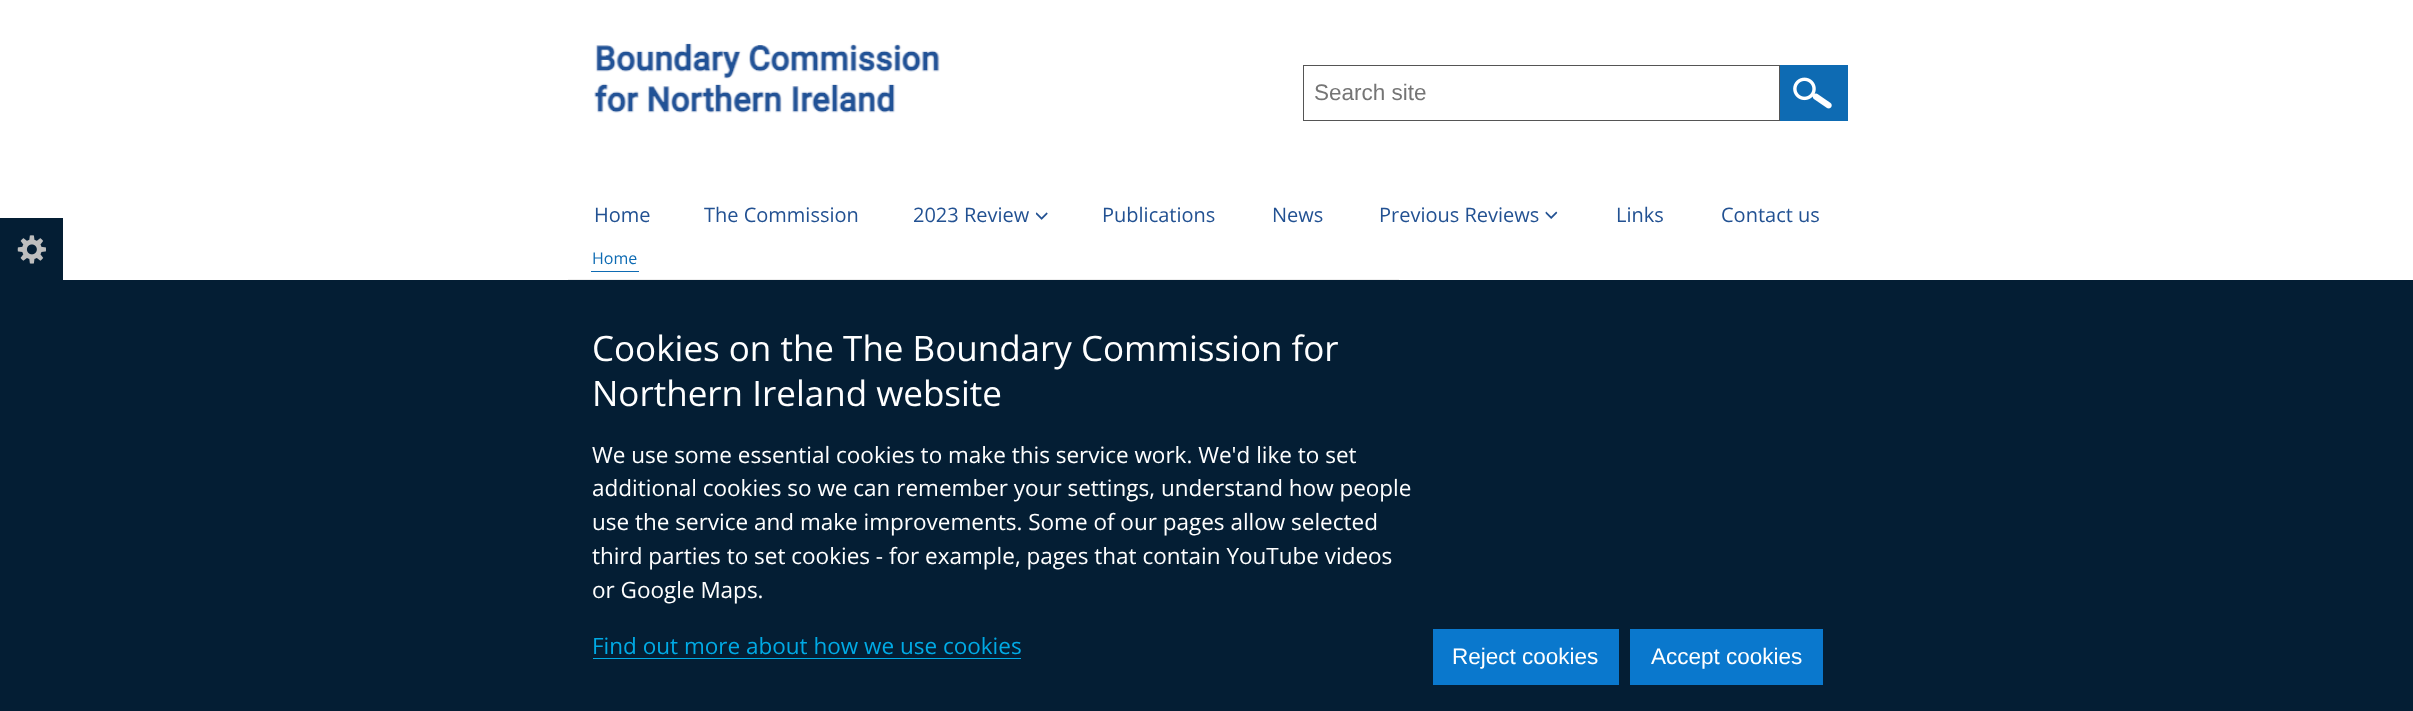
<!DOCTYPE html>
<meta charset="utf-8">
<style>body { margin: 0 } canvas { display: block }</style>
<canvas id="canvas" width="2413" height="711"></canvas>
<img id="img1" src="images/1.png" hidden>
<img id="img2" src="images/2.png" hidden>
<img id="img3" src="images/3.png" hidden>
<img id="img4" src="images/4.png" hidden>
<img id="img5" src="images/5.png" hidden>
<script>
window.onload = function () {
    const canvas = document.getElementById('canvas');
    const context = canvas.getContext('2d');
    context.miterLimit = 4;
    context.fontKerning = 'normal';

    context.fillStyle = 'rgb(255, 255, 255)';
    context.fillRect(0, 0, 2413, 711);
    context.drawImage(document.getElementById('img1'), 594, 43, 346, 70);
    context.strokeStyle = 'rgb(85, 85, 85)';
    context.strokeRect(1303.5, 65.5, 476, 55);
    context.fillStyle = 'rgb(14, 107, 179)';
    context.fillRect(1780, 65, 68, 56);
    context.drawImage(document.getElementById('img2'), 1793, 77, 39, 32);
    context.drawImage(document.getElementById('img3'), 1035, 212, 13, 8);
    context.drawImage(document.getElementById('img4'), 1545, 211, 13, 8);
    context.fillStyle = 'rgb(238, 238, 238)';
    context.fillRect(568, 279, 831, 1);
    context.fillStyle = 'rgb(14, 107, 179)';
    context.fillRect(591, 271, 48, 1);
    context.fillStyle = 'rgb(4, 30, 52)';
    context.fillRect(0, 218, 63, 62);
    context.drawImage(document.getElementById('img5'), 17, 235, 29, 29);
    context.fillRect(0, 280, 2413, 431);
    context.fillStyle = 'rgb(0, 170, 229)';
    context.fillRect(593, 658, 428, 1);
    context.fillStyle = 'rgb(10, 120, 205)';
    context.fillRect(1433, 629, 186, 56);
    context.fillRect(1630, 629, 193, 56);
    context.font = '22.5px Liberation Sans';
    context.fillStyle = 'rgb(117, 117, 117)';
    context.fillText('Search site', 1314, 100);
    context.font = '20px Open Sans';
    context.fillStyle = 'rgb(34, 81, 146)';
    context.fillText('Home', 594, 222);
    context.fillText('The Commission', 704, 222);
    context.fillText('2023 Review', 913, 222);
    context.fillText('Publications', 1102, 222);
    context.fillText('News', 1272, 222);
    context.fillText('Previous Reviews', 1379, 222);
    context.fillText('Links', 1616, 222);
    context.fillText('Contact us', 1721, 222);
    context.font = '16px Open Sans';
    context.fillStyle = 'rgb(14, 107, 179)';
    context.fillText('Home', 592, 264);
    context.font = '35px Open Sans';
    context.fillStyle = 'rgb(255, 255, 255)';
    context.fillText('Cookies on the The Boundary Commission for', 592, 361);
    context.fillText('Northern Ireland website', 592, 406);
    context.font = '22.5px Open Sans';
    context.fillText('We use some essential cookies to make this service work. We\'d like to set', 592, 463);
    context.fillText('additional cookies so we can remember your settings, understand how people', 592, 496);
    context.fillText('use the service and make improvements. Some of our pages allow selected', 592, 530);
    context.fillText('third parties to set cookies - for example, pages that contain YouTube videos', 592, 564);
    context.fillText('or Google Maps.', 592, 598);
    context.fillStyle = 'rgb(0, 170, 229)';
    context.fillText('Find out more about how we use cookies', 592, 654);
    context.font = '22.5px Liberation Sans';
    context.fillStyle = 'rgb(255, 255, 255)';
    context.fillText('Reject cookies', 1452, 664);
    context.fillText('Accept cookies', 1651, 664);
};
</script>
